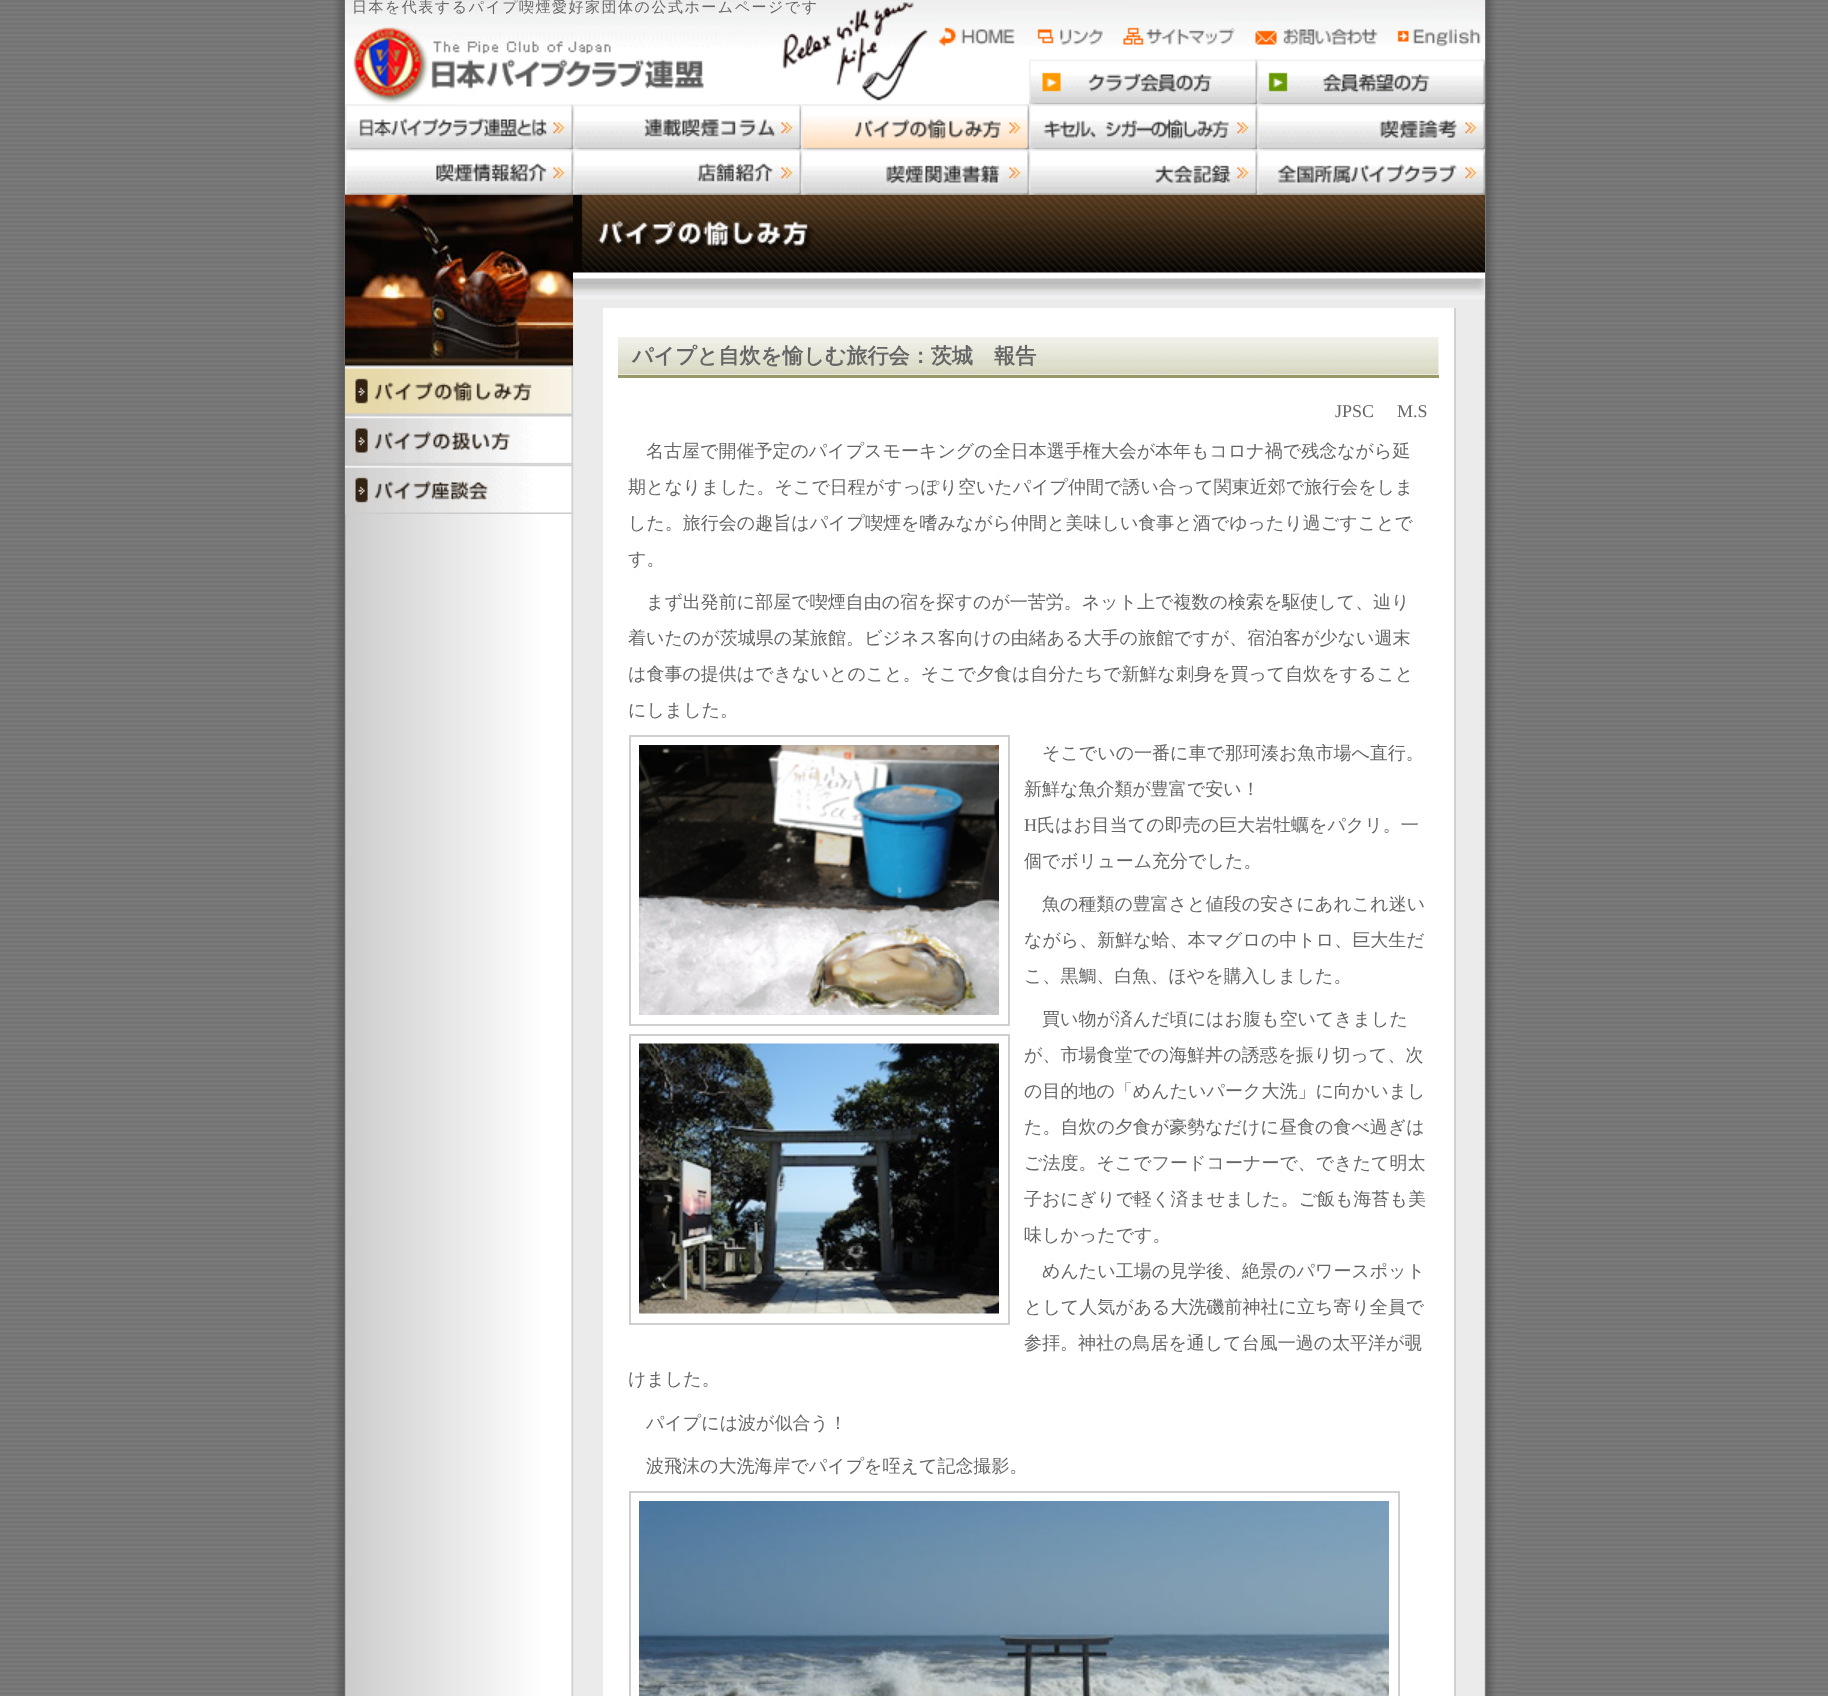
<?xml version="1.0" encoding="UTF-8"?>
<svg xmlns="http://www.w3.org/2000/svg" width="1828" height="1696">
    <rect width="100%" height="100%" fill="#FFFFFF"/>
    <image x="0" y="0" width="1828" height="1696" href="img_01.png"/>
    <image x="315" y="0" width="1202" height="1696" href="img_02.png"/>
    <image x="345" y="0" width="1140" height="105" href="img_03.png"/>
    <text x="352" y="12" font-family="WenQuanYi Zen Hei" font-size="15" font-weight="500" letter-spacing="1.5" fill="#666666">日本を代表するパイプ喫煙愛好家団体の公式ホームページです</text>
    <image x="345" y="25" width="375" height="80" href="img_04.png"/>
    <image x="939" y="27" width="542" height="20" href="img_05.png"/>
    <image x="1029" y="59" width="456" height="46" href="img_06.png"/>
    <image x="345" y="104" width="1140" height="46" href="img_07.png"/>
    <image x="801" y="104" width="228" height="46" href="img_08.png"/>
    <image x="345" y="365" width="227" height="50" href="img_11.png"/>
    <image x="345" y="194" width="228" height="172" href="img_10.png"/>
    <image x="573" y="194" width="912" height="106" href="img_14.png"/>
    <image x="345" y="149" width="1140" height="46" href="img_09.png"/>
    <image x="345" y="415" width="227" height="50" href="img_12.png"/>
    <image x="345" y="464" width="227" height="50" href="img_13.png"/>
    <rect x="603" y="308" width="851" height="1388" fill="#FFFFFF"/>
    <rect x="1454" y="308" width="2" height="1388" fill="#D1D1D1"/>
    <image x="618" y="337" width="821" height="38" href="img_15.png"/>
    <rect x="618" y="375" width="821" height="3" fill="#999966"/>
    <text x="632" y="363" font-family="WenQuanYi Zen Hei" font-size="21.1" font-weight="700" fill="#666666">パイプと自炊を愉しむ旅行会：茨城　報告</text>
    <text x="1335" y="417" font-family="Liberation Serif" font-size="18" fill="#666666">JPSC</text>
    <text x="1397" y="417" font-family="Liberation Serif" font-size="18" fill="#666666">M.S</text>
    <text x="646" y="457" font-family="WenQuanYi Zen Hei" font-size="18" font-weight="500" fill="#666666">名古屋で開催予定のパイプスモーキングの全日本選手権大会が本年もコロナ禍で残念ながら延</text>
    <text x="628" y="493" font-family="WenQuanYi Zen Hei" font-size="18" font-weight="500" fill="#666666">期となりました。そこで日程がすっぽり空いたパイプ仲間で誘い合って関東近郊で旅行会をしま</text>
    <text x="628" y="529" font-family="WenQuanYi Zen Hei" font-size="18" font-weight="500" fill="#666666">した。旅行会の趣旨はパイプ喫煙を嗜みながら仲間と美味しい食事と酒でゆったり過ごすことで</text>
    <text x="628" y="565" font-family="WenQuanYi Zen Hei" font-size="18" font-weight="500" fill="#666666">す。</text>
    <text x="646" y="608" font-family="WenQuanYi Zen Hei" font-size="18" font-weight="500" fill="#666666">まず出発前に部屋で喫煙自由の宿を探すのが一苦労。ネット上で複数の検索を駆使して、辿り</text>
    <text x="628" y="644" font-family="WenQuanYi Zen Hei" font-size="18" font-weight="500" fill="#666666">着いたのが茨城県の某旅館。ビジネス客向けの由緒ある大手の旅館ですが、宿泊客が少ない週末</text>
    <text x="628" y="680" font-family="WenQuanYi Zen Hei" font-size="18" font-weight="500" fill="#666666">は食事の提供はできないとのこと。そこで夕食は自分たちで新鮮な刺身を買って自炊をすること</text>
    <text x="628" y="716" font-family="WenQuanYi Zen Hei" font-size="18" font-weight="500" fill="#666666">にしました。</text>
    <rect x="630" y="736" width="379" height="289" fill="none" stroke="#CFCFCF" stroke-width="2"/>
    <image x="639" y="745" width="360" height="270" href="img_16.png"/>
    <text x="1042" y="759" font-family="WenQuanYi Zen Hei" font-size="18" font-weight="500" fill="#666666">そこでいの一番に車で那珂湊お魚市場へ直行。</text>
    <text x="1024" y="795" font-family="WenQuanYi Zen Hei" font-size="18" font-weight="500" fill="#666666">新鮮な魚介類が豊富で安い！</text>
    <text x="1024" y="831" font-family="Liberation Serif" font-size="18" fill="#666666">H</text>
    <text x="1037" y="831" font-family="WenQuanYi Zen Hei" font-size="18" font-weight="500" fill="#666666">氏はお目当ての即売の巨大岩牡蠣をパクリ。一</text>
    <text x="1024" y="867" font-family="WenQuanYi Zen Hei" font-size="18" font-weight="500" fill="#666666">個でボリューム充分でした。</text>
    <text x="1042" y="910" font-family="WenQuanYi Zen Hei" font-size="18" font-weight="500" fill="#666666">魚の種類の豊富さと値段の安さにあれこれ迷い</text>
    <text x="1024" y="946" font-family="WenQuanYi Zen Hei" font-size="18" font-weight="500" fill="#666666">ながら、新鮮な蛤、本マグロの中トロ、巨大生だ</text>
    <text x="1024" y="982" font-family="WenQuanYi Zen Hei" font-size="18" font-weight="500" fill="#666666">こ、黒鯛、白魚、ほやを購入しました。</text>
    <text x="1042" y="1025" font-family="WenQuanYi Zen Hei" font-size="18" font-weight="500" fill="#666666">買い物が済んだ頃にはお腹も空いてきました</text>
    <rect x="630" y="1035" width="379" height="289" fill="none" stroke="#CFCFCF" stroke-width="2"/>
    <image x="639" y="1043" width="360" height="271" href="img_17.png"/>
    <text x="1024" y="1061" font-family="WenQuanYi Zen Hei" font-size="18" font-weight="500" fill="#666666">が、市場食堂での海鮮丼の誘惑を振り切って、次</text>
    <text x="1024" y="1097" font-family="WenQuanYi Zen Hei" font-size="18" font-weight="500" fill="#666666">の目的地の「めんたいパーク大洗」に向かいまし</text>
    <text x="1024" y="1133" font-family="WenQuanYi Zen Hei" font-size="18" font-weight="500" fill="#666666">た。自炊の夕食が豪勢なだけに昼食の食べ過ぎは</text>
    <text x="1024" y="1169" font-family="WenQuanYi Zen Hei" font-size="18" font-weight="500" fill="#666666">ご法度。そこでフードコーナーで、できたて明太</text>
    <text x="1024" y="1205" font-family="WenQuanYi Zen Hei" font-size="18" font-weight="500" fill="#666666">子おにぎりで軽く済ませました。ご飯も海苔も美</text>
    <text x="1024" y="1241" font-family="WenQuanYi Zen Hei" font-size="18" font-weight="500" fill="#666666">味しかったです。</text>
    <text x="1042" y="1277" font-family="WenQuanYi Zen Hei" font-size="18" font-weight="500" fill="#666666">めんたい工場の見学後、絶景のパワースポット</text>
    <text x="1024" y="1313" font-family="WenQuanYi Zen Hei" font-size="18" font-weight="500" fill="#666666">として人気がある大洗磯前神社に立ち寄り全員で</text>
    <text x="1024" y="1349" font-family="WenQuanYi Zen Hei" font-size="18" font-weight="500" fill="#666666">参拝。神社の鳥居を通して台風一過の太平洋が覗</text>
    <text x="628" y="1385" font-family="WenQuanYi Zen Hei" font-size="18" font-weight="500" fill="#666666">けました。</text>
    <text x="646" y="1429" font-family="WenQuanYi Zen Hei" font-size="18" font-weight="500" fill="#666666">パイプには波が似合う！</text>
    <text x="646" y="1472" font-family="WenQuanYi Zen Hei" font-size="18" font-weight="500" fill="#666666">波飛沫の大洗海岸でパイプを咥えて記念撮影。</text>
    <rect x="630" y="1492" width="769" height="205" fill="none" stroke="#CFCFCF" stroke-width="2"/>
    <image x="639" y="1501" width="750" height="195" href="img_18.png"/>
</svg>
